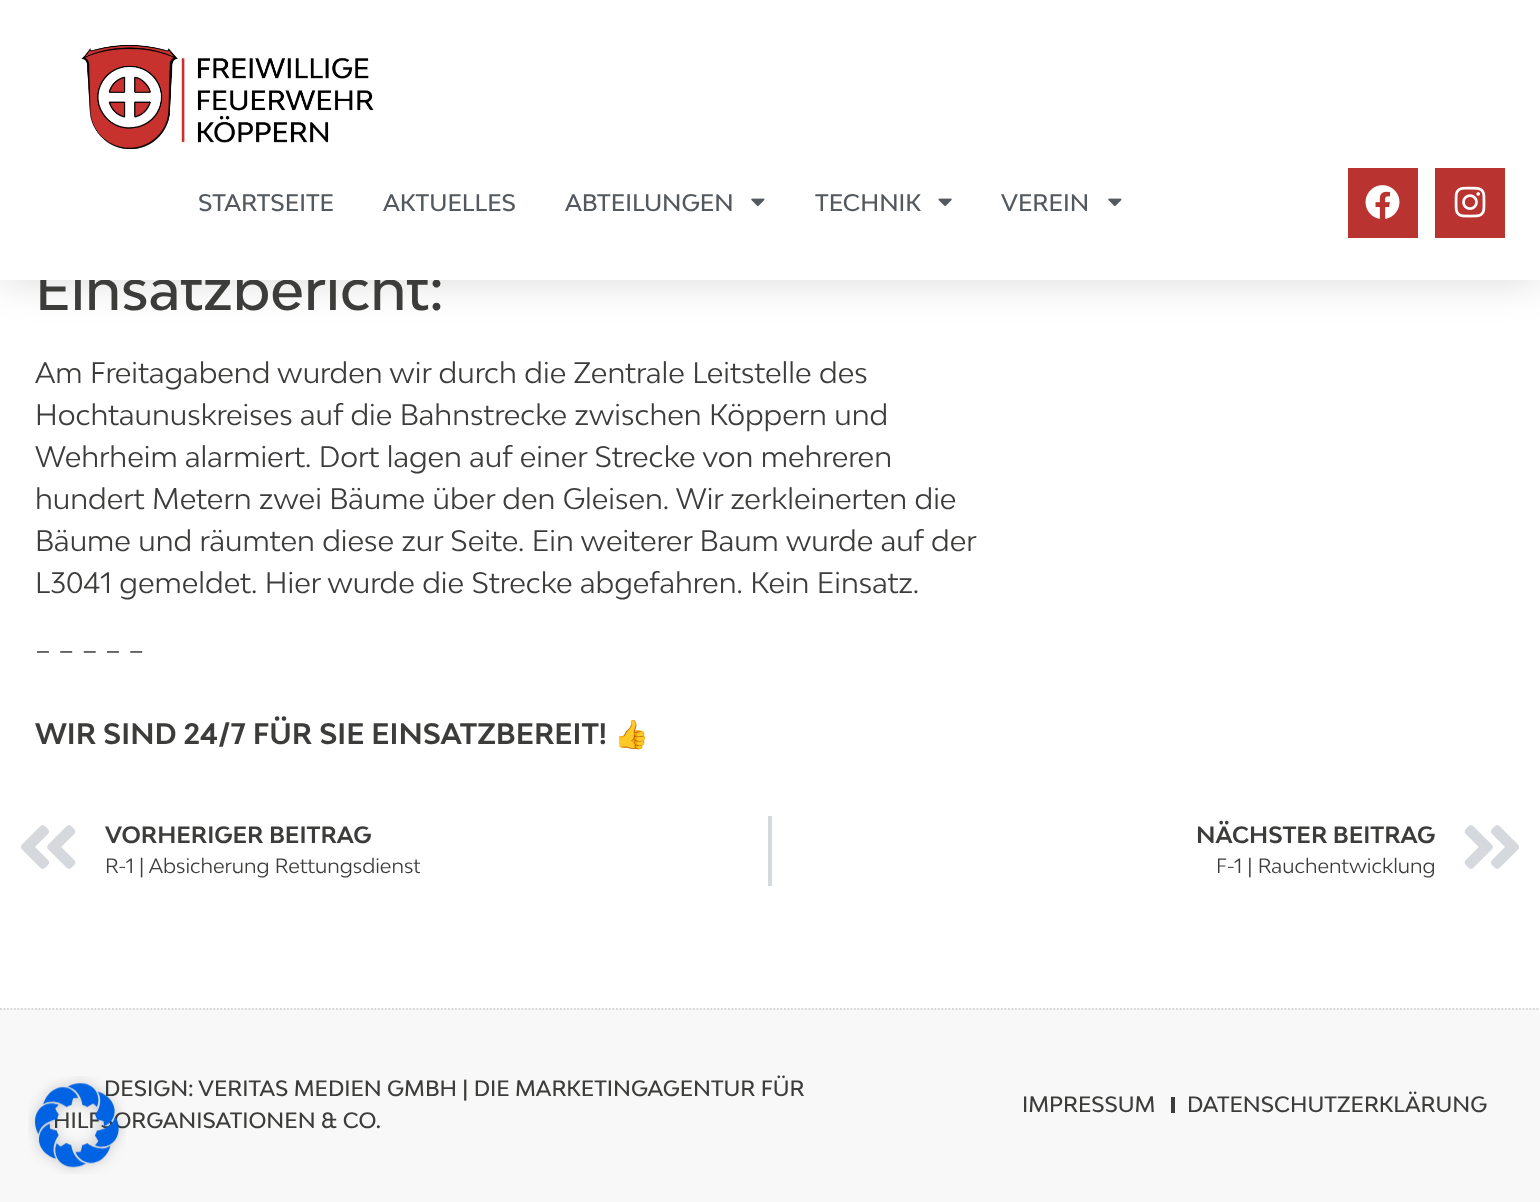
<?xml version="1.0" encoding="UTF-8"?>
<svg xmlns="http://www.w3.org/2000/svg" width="1540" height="1202">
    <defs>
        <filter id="blur1" x="-50%" y="-200%" width="200%" height="500%"><feGaussianBlur stdDeviation="21"/></filter>
        <clipPath id="clip1"><rect x="105" y="852" width="315" height="30"/></clipPath>
    </defs>
    <rect width="100%" height="100%" fill="#FFFFFF"/>
    <rect x="0" y="0" width="1540" height="280" fill="#000000" fill-opacity="0.15" filter="url(#blur1)"/>
    <text x="35" y="310" font-family="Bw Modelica" font-size="56" font-weight="500" fill="#3C3C3B">Einsatzbericht:</text>
    <rect x="0" y="0" width="1540" height="280" fill="#FFFFFF"/>
    <image x="81" y="44" width="293" height="106" href="img_01.png"/>
    <text x="198" y="211" font-family="Bw Modelica" font-size="22.75" font-weight="500" fill="#54595F">STARTSEITE</text>
    <text x="383" y="211" font-family="Bw Modelica" font-size="22.75" font-weight="500" fill="#54595F">AKTUELLES</text>
    <text x="565" y="211" font-family="Bw Modelica" font-size="22.75" font-weight="500" fill="#54595F">ABTEILUNGEN</text>
    <image x="751" y="198" width="14" height="9" href="img_02.png"/>
    <text x="815" y="211" font-family="Bw Modelica" font-size="22.75" font-weight="500" fill="#54595F">TECHNIK</text>
    <image x="938" y="198" width="14" height="9" href="img_03.png"/>
    <text x="1001" y="211" font-family="Bw Modelica" font-size="22.75" font-weight="500" fill="#54595F">VEREIN</text>
    <image x="1108" y="198" width="14" height="9" href="img_02.png"/>
    <rect x="1348" y="168" width="70" height="70" fill="#B93331"/>
    <image x="1365" y="185" width="35" height="34" href="img_04.png"/>
    <rect x="1435" y="168" width="70" height="70" fill="#B93331"/>
    <image x="1454" y="186" width="32" height="32" href="img_05.png"/>
    <text font-family="Bw Modelica" font-size="28" fill="#3C3C3B">
        <tspan x="35" y="383">Am Freitagabend wurden wir durch die Zentrale Leitstelle des</tspan>
        <tspan x="35" y="425">Hochtaunuskreises auf die Bahnstrecke zwischen Köppern und</tspan>
        <tspan x="35" y="467">Wehrheim alarmiert. Dort lagen auf einer Strecke von mehreren</tspan>
        <tspan x="35" y="509">hundert Metern zwei Bäume über den Gleisen. Wir zerkleinerten die</tspan>
        <tspan x="35" y="551">Bäume und räumten diese zur Seite. Ein weiterer Baum wurde auf der</tspan>
        <tspan x="35" y="593">L3041 gemeldet. Hier wurde die Strecke abgefahren. Kein Einsatz.</tspan>
    </text>
    <text x="35" y="660" font-family="Bw Modelica" font-size="28" fill="#3C3C3B">– – – – –</text>
    <text x="35" y="744" font-family="Bw Modelica" font-size="28" font-weight="700" fill="#3C3C3B">WIR SIND 24/7 FÜR SIE EINSATZBEREIT!</text>
    <text x="614" y="744" font-family="Noto Color Emoji" font-size="28" font-weight="700" fill="#3C3C3B">👍</text>
    <image x="21" y="825" width="55" height="44" href="img_06.png"/>
    <text x="105" y="843" font-family="Bw Modelica" font-size="22.4" font-weight="700" fill="#3C3C3B">VORHERIGER BEITRAG</text>
    <g clip-path="url(#clip1)">
        <text x="105" y="873" font-family="Bw Modelica" font-size="19.6" fill="#3C3C3B">R-1 | Absicherung Rettungsdienst</text>
    </g>
    <rect x="768" y="816" width="4" height="70" fill="#D5D8DC"/>
    <text x="1196" y="843" font-family="Bw Modelica" font-size="22.4" font-weight="700" fill="#3C3C3B">NÄCHSTER BEITRAG</text>
    <text x="1216" y="873" font-family="Bw Modelica" font-size="19.6" fill="#3C3C3B">F-1 | Rauchentwicklung</text>
    <image x="1464" y="825" width="55" height="44" href="img_07.png"/>
    <rect x="0" y="1008" width="1540" height="194" fill="#F8F8F8"/>
    <path d="M 0 1009 H 1540" fill="none" stroke="#D6D6D6" stroke-width="1.8" stroke-dasharray="1.75 1.75"/>
    <text x="104" y="1096" font-family="Bw Modelica" font-size="21" font-weight="500" fill="#3C3C3B">DESIGN: VERITAS MEDIEN GMBH | DIE MARKETINGAGENTUR FÜR</text>
    <text x="53" y="1128" font-family="Bw Modelica" font-size="21" font-weight="500" fill="#3C3C3B">HILFSORGANISATIONEN &amp; CO.</text>
    <text x="1022" y="1112" font-family="Bw Modelica" font-size="21" font-weight="500" fill="#3C3C3B">IMPRESSUM</text>
    <rect x="1171" y="1097" width="4" height="16" fill="#3C3C3B"/>
    <text x="1187" y="1112" font-family="Bw Modelica" font-size="21" font-weight="500" fill="#3C3C3B">DATENSCHUTZERKLÄRUNG</text>
    <image x="28" y="1076" width="98" height="98" href="img_08.png"/>
</svg>
